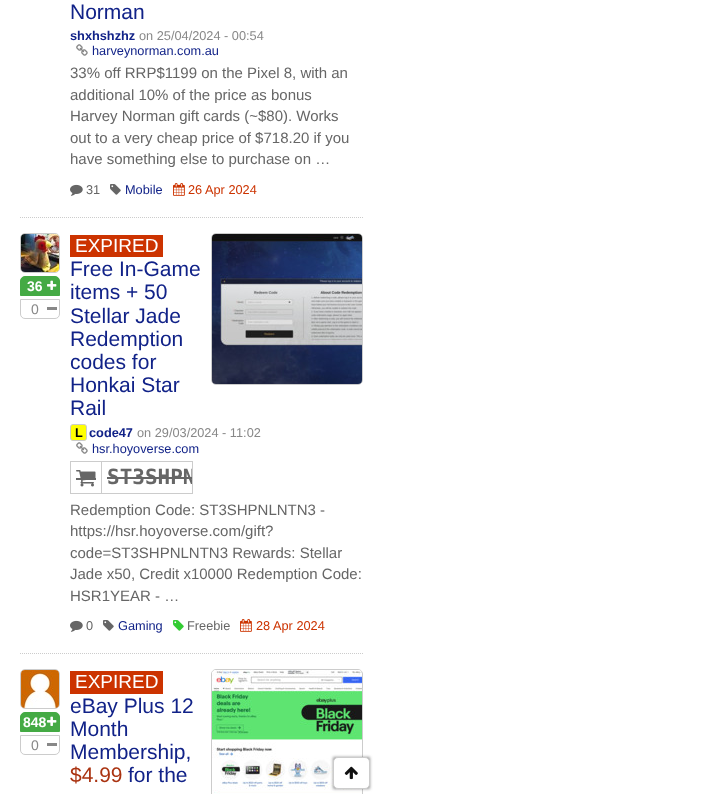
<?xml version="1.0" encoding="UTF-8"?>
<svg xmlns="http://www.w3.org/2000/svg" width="703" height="794">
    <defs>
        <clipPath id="clip1"><rect x="71" y="462" width="121" height="31"/></clipPath>
        <filter id="blur1" x="-50%" y="-200%" width="200%" height="500%"><feGaussianBlur stdDeviation="1.5"/></filter>
    </defs>
    <rect width="100%" height="100%" fill="#FFFFFF"/>
    <path d="M 20 217.5 H 363" fill="none" stroke="#CCCCCC" stroke-dasharray="1 1"/>
    <text x="70" y="19" font-family="Liberation Sans" font-size="21" fill="#112288">Norman</text>
    <text x="70" y="40" font-family="Liberation Sans" font-size="12.75" font-weight="700" fill="#112288">shxhshzhz</text>
    <text x="139" y="40" font-family="Liberation Sans" font-size="12.75" fill="#888888">on 25/04/2024 - 00:54</text>
    <image x="76" y="44" width="12" height="12" href="img_01.png"/>
    <text x="92" y="55" font-family="Liberation Sans" font-size="12.75" fill="#112288">harveynorman.com.au</text>
    <text font-family="Liberation Sans" font-size="15" fill="#666666">
        <tspan x="70" y="78">33% off RRP$1199 on the Pixel 8, with an</tspan>
        <tspan x="70" y="100">additional 10% of the price as bonus</tspan>
        <tspan x="70" y="121">Harvey Norman gift cards (~$80). Works</tspan>
        <tspan x="70" y="143">out to a very cheap price of $718.20 if you</tspan>
        <tspan x="70" y="164">have something else to purchase on …</tspan>
    </text>
    <image x="70" y="184" width="13" height="12" href="img_02.png"/>
    <text x="86" y="194" font-family="Liberation Sans" font-size="12.75" fill="#666666">31</text>
    <image x="110" y="184" width="11" height="11" href="img_03.png"/>
    <text x="125" y="194" font-family="Liberation Sans" font-size="12.75" fill="#112288">Mobile</text>
    <image x="173" y="183" width="12" height="13" href="img_04.png"/>
    <text x="188" y="194" font-family="Liberation Sans" font-size="12.75" fill="#CC3300">26 Apr 2024</text>
    <path d="M 20 653.5 H 363" fill="none" stroke="#CCCCCC" stroke-dasharray="1 1"/>
    <rect x="20.5" y="233.5" width="39" height="39" rx="4.5" fill="none" stroke="#CCCCCC"/>
    <image x="21" y="234" width="38" height="38" href="img_05.png"/>
    <path d="M 25 276.5 H 55 C 57.5 276.5 59.5 278.5 59.5 281 V 295.5 H 20.5 V 281 C 20.5 278.5 22.5 276.5 25 276.5 Z" fill="#44AA44" stroke="#44AA44"/>
    <text x="27" y="291" font-family="Liberation Sans" font-size="14" font-weight="700" fill="#FFFFFF">36</text>
    <image x="47" y="280" width="10" height="10" href="img_06.png"/>
    <path d="M 20.5 299.5 H 59.5 V 314 C 59.5 316.5 57.5 318.5 55 318.5 H 25 C 22.5 318.5 20.5 316.5 20.5 314 Z" fill="none" stroke="#CCCCCC"/>
    <text x="31" y="314" font-family="Liberation Sans" font-size="14" fill="#888888">0</text>
    <rect x="47" y="307" width="10" height="3" fill="#888888"/>
    <rect x="70" y="235" width="93" height="22" fill="#CC3300"/>
    <text x="75" y="252" font-family="Liberation Sans" font-size="19" fill="#FFFFFF">EXPIRED</text>
    <text font-family="Liberation Sans" font-size="21" fill="#112288">
        <tspan x="70" y="276">Free In-Game</tspan>
        <tspan x="70" y="299">items + 50</tspan>
        <tspan x="70" y="323">Stellar Jade</tspan>
        <tspan x="70" y="346">Redemption</tspan>
        <tspan x="70" y="369">codes for</tspan>
        <tspan x="70" y="392">Honkai Star</tspan>
        <tspan x="70" y="415">Rail</tspan>
    </text>
    <rect x="211.5" y="233.5" width="151" height="151" rx="4.5" fill="none" stroke="#CCCCCC"/>
    <image x="212" y="234" width="150" height="150" href="img_07.png"/>
    <rect x="70.5" y="424.5" width="16" height="16" rx="2.5" fill="#FFFF00" stroke="#CCCCCC"/>
    <text x="75" y="437" font-family="Liberation Sans" font-size="12.75" font-weight="700" fill="#000000">L</text>
    <text x="89" y="437" font-family="Liberation Sans" font-size="12.75" font-weight="700" fill="#112288">code47</text>
    <text x="137" y="437" font-family="Liberation Sans" font-size="12.75" fill="#888888">on 29/03/2024 - 11:02</text>
    <image x="76" y="442" width="12" height="12" href="img_01.png"/>
    <text x="92" y="453" font-family="Liberation Sans" font-size="12.75" fill="#112288">hsr.hoyoverse.com</text>
    <rect x="70.5" y="461.5" width="122" height="32" fill="none" stroke="#CCCCCC"/>
    <image x="76" y="470" width="20" height="17" href="img_08.png"/>
    <rect x="76" y="478" width="20" height="2" fill="#666666"/>
    <rect x="101" y="462" width="1" height="31" fill="#CCCCCC"/>
    <g clip-path="url(#clip1)">
        <text x="107" y="484" font-family="DejaVu Sans Mono" font-size="21" font-weight="700" fill="#666666">ST3SHPN</text>
    </g>
    <rect x="107" y="477" width="85" height="2" fill="#666666"/>
    <text font-family="Liberation Sans" font-size="15" fill="#666666">
        <tspan x="70" y="515">Redemption Code: ST3SHPNLNTN3 -</tspan>
        <tspan x="70" y="536">https://hsr.hoyoverse.com/gift?</tspan>
        <tspan x="70" y="558">code=ST3SHPNLNTN3 Rewards: Stellar</tspan>
        <tspan x="70" y="579">Jade x50, Credit x10000 Redemption Code:</tspan>
        <tspan x="70" y="601">HSR1YEAR - …</tspan>
    </text>
    <image x="70" y="620" width="13" height="12" href="img_02.png"/>
    <text x="86" y="630" font-family="Liberation Sans" font-size="12.75" fill="#666666">0</text>
    <image x="103" y="620" width="11" height="11" href="img_03.png"/>
    <text x="118" y="630" font-family="Liberation Sans" font-size="12.75" fill="#112288">Gaming</text>
    <image x="173" y="620" width="11" height="11" href="img_09.png"/>
    <text x="187" y="630" font-family="Liberation Sans" font-size="12.75" fill="#666666">Freebie</text>
    <image x="240" y="619" width="12" height="13" href="img_04.png"/>
    <text x="256" y="630" font-family="Liberation Sans" font-size="12.75" fill="#CC3300">28 Apr 2024</text>
    <rect x="20.5" y="669.5" width="39" height="39" rx="4.5" fill="none" stroke="#CCCCCC"/>
    <image x="21" y="670" width="38" height="38" href="img_10.png"/>
    <path d="M 25 712.5 H 55 C 57.5 712.5 59.5 714.5 59.5 717 V 731.5 H 20.5 V 717 C 20.5 714.5 22.5 712.5 25 712.5 Z" fill="#44AA44" stroke="#44AA44"/>
    <text x="23" y="727" font-family="Liberation Sans" font-size="14" font-weight="700" fill="#FFFFFF">848</text>
    <image x="47" y="716" width="10" height="10" href="img_06.png"/>
    <path d="M 20.5 735.5 H 59.5 V 750 C 59.5 752.5 57.5 754.5 55 754.5 H 25 C 22.5 754.5 20.5 752.5 20.5 750 Z" fill="none" stroke="#CCCCCC"/>
    <text x="31" y="750" font-family="Liberation Sans" font-size="14" fill="#888888">0</text>
    <rect x="47" y="743" width="10" height="3" fill="#888888"/>
    <rect x="70" y="671" width="93" height="23" fill="#CC3300"/>
    <text x="75" y="688" font-family="Liberation Sans" font-size="19" fill="#FFFFFF">EXPIRED</text>
    <text font-family="Liberation Sans" font-size="21" fill="#112288">
        <tspan x="70" y="713">eBay Plus 12</tspan>
        <tspan x="70" y="736">Month</tspan>
        <tspan x="70" y="759">Membership,</tspan>
    </text>
    <text x="70" y="782" font-family="Liberation Sans" font-size="21" fill="#AA3311">$4.99</text>
    <text x="128" y="782" font-family="Liberation Sans" font-size="21" fill="#112288">for the</text>
    <rect x="211.5" y="669.5" width="151" height="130" rx="4.5" fill="none" stroke="#CCCCCC"/>
    <image x="212" y="670" width="150" height="124" href="img_11.png"/>
    <rect x="333" y="757" width="37" height="32" fill="#000000" fill-opacity="0.4" filter="url(#blur1)"/>
    <rect x="333.5" y="757.5" width="36" height="31" rx="4.5" fill="#FFFFFF" stroke="#CCCCCC"/>
    <image x="344" y="766" width="14" height="14" href="img_12.png"/>
</svg>
